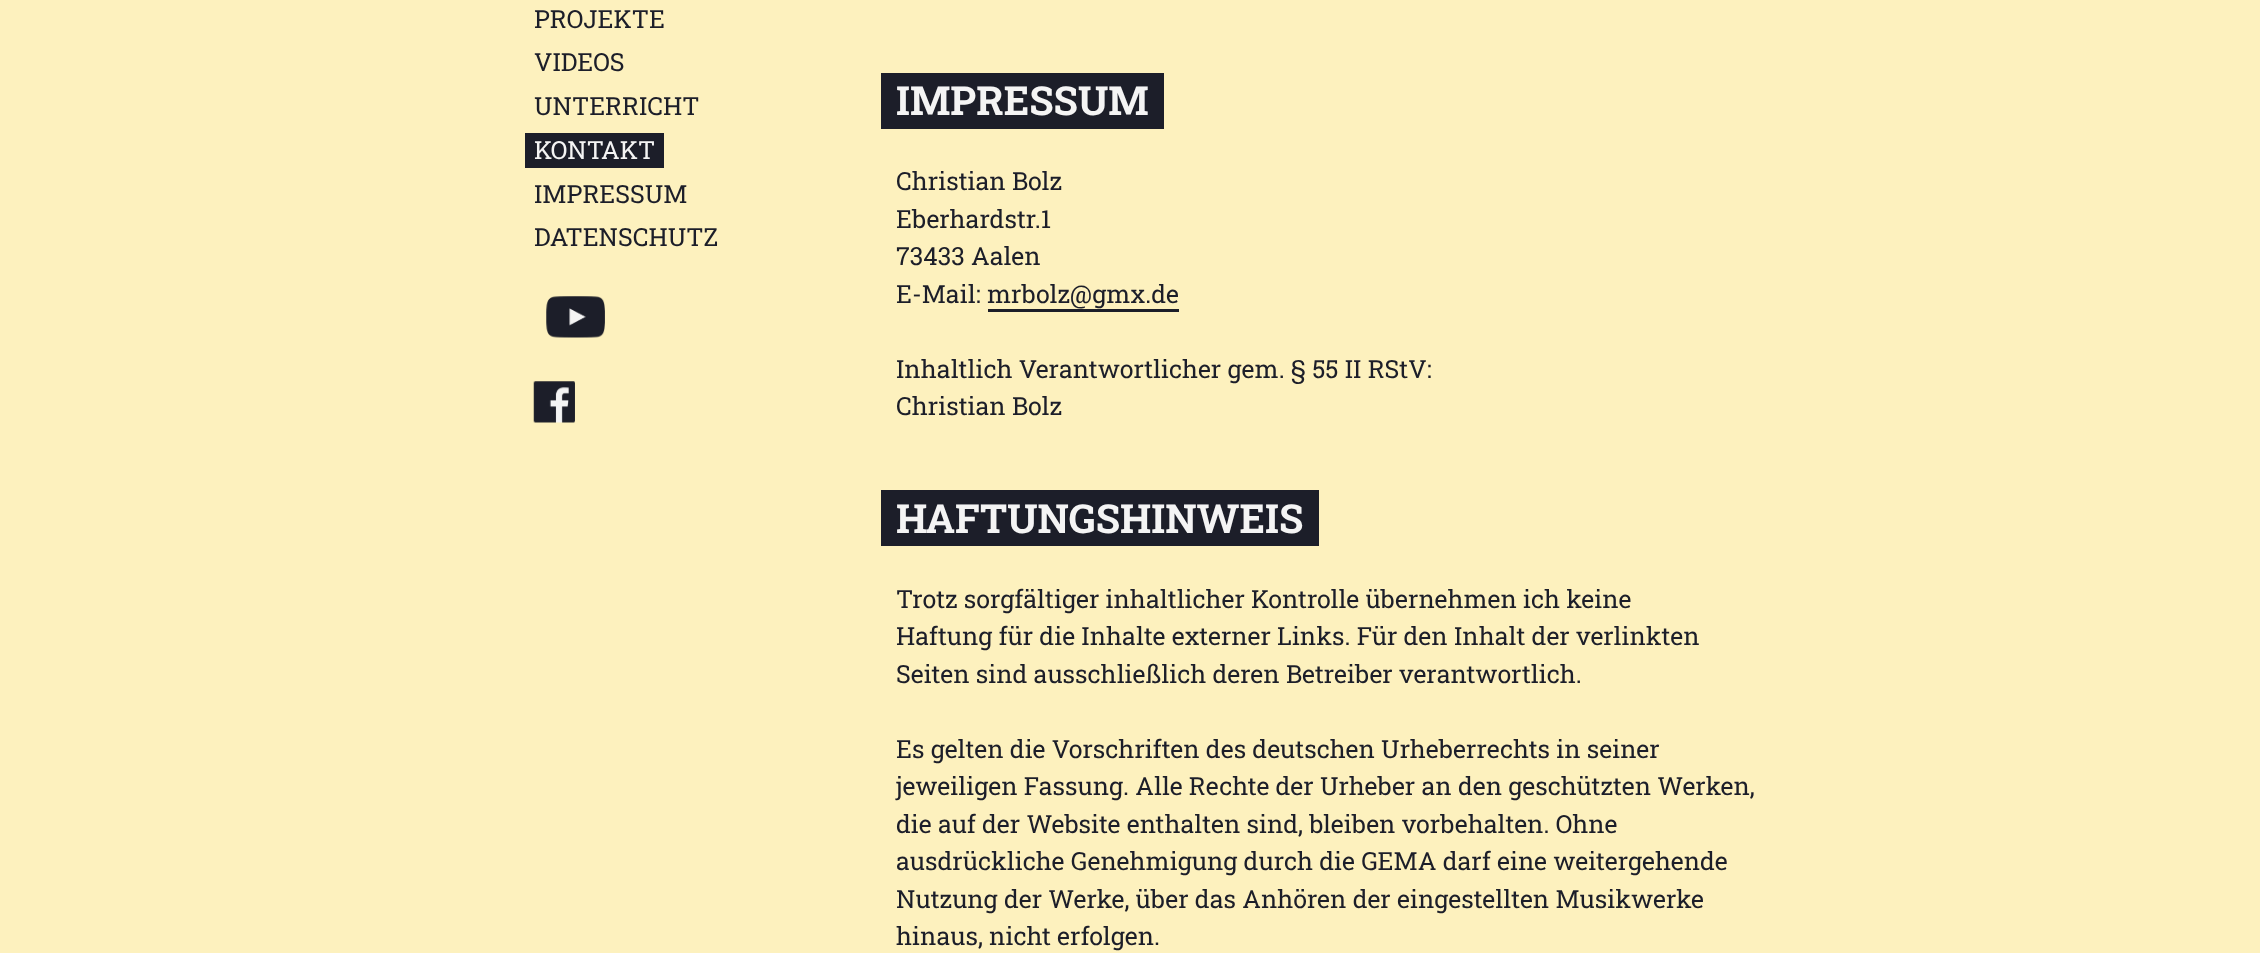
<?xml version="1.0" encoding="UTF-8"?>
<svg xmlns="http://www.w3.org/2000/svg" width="2260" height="953">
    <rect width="100%" height="100%" fill="#FDF1BE"/>
    <text font-family="Roboto Slab" font-size="25" fill="#1C1E29">
        <tspan x="534" y="28">PROJEKTE</tspan>
        <tspan x="534" y="71">VIDEOS</tspan>
        <tspan x="534" y="115">UNTERRICHT</tspan>
    </text>
    <rect x="525" y="133" width="139" height="35" fill="#1C1E29"/>
    <text x="534" y="159" font-family="Roboto Slab" font-size="25" fill="#F4F4F4">KONTAKT</text>
    <text font-family="Roboto Slab" font-size="25" fill="#1C1E29">
        <tspan x="534" y="203">IMPRESSUM</tspan>
        <tspan x="534" y="246">DATENSCHUTZ</tspan>
    </text>
    <image x="546" y="296" width="59" height="42" href="img_01.png"/>
    <image x="533" y="381" width="42" height="42" href="img_02.png"/>
    <rect x="881" y="73" width="283" height="56" fill="#1C1E29"/>
    <text x="896" y="115" font-family="Roboto Slab" font-size="40" font-weight="700" fill="#F4F4F4">IMPRESSUM</text>
    <text font-family="Roboto Slab" font-size="25" fill="#1C1E29">
        <tspan x="896" y="190">Christian Bolz</tspan>
        <tspan x="896" y="228">Eberhardstr.1</tspan>
        <tspan x="896" y="265">73433 Aalen</tspan>
        <tspan x="896" y="303">E-Mail: mrbolz@gmx.de</tspan>
    </text>
    <rect x="988" y="309" width="191" height="3" fill="#1C1E29"/>
    <text font-family="Roboto Slab" font-size="25" fill="#1C1E29">
        <tspan x="896" y="378">Inhaltlich Verantwortlicher gem. § 55 II RStV:</tspan>
        <tspan x="896" y="415">Christian Bolz</tspan>
    </text>
    <rect x="881" y="490" width="438" height="56" fill="#1C1E29"/>
    <text x="896" y="533" font-family="Roboto Slab" font-size="40" font-weight="700" fill="#F4F4F4">HAFTUNGSHINWEIS</text>
    <text font-family="Roboto Slab" font-size="25" fill="#1C1E29">
        <tspan x="896" y="608">Trotz sorgfältiger inhaltlicher Kontrolle übernehmen ich keine</tspan>
        <tspan x="896" y="645">Haftung für die Inhalte externer Links. Für den Inhalt der verlinkten</tspan>
        <tspan x="896" y="683">Seiten sind ausschließlich deren Betreiber verantwortlich.</tspan>
    </text>
    <text font-family="Roboto Slab" font-size="25" fill="#1C1E29">
        <tspan x="896" y="758">Es gelten die Vorschriften des deutschen Urheberrechts in seiner</tspan>
        <tspan x="896" y="795">jeweiligen Fassung. Alle Rechte der Urheber an den geschützten Werken,</tspan>
        <tspan x="896" y="833">die auf der Website enthalten sind, bleiben vorbehalten. Ohne</tspan>
        <tspan x="896" y="870">ausdrückliche Genehmigung durch die GEMA darf eine weitergehende</tspan>
        <tspan x="896" y="908">Nutzung der Werke, über das Anhören der eingestellten Musikwerke</tspan>
        <tspan x="896" y="945">hinaus, nicht erfolgen.</tspan>
    </text>
</svg>
